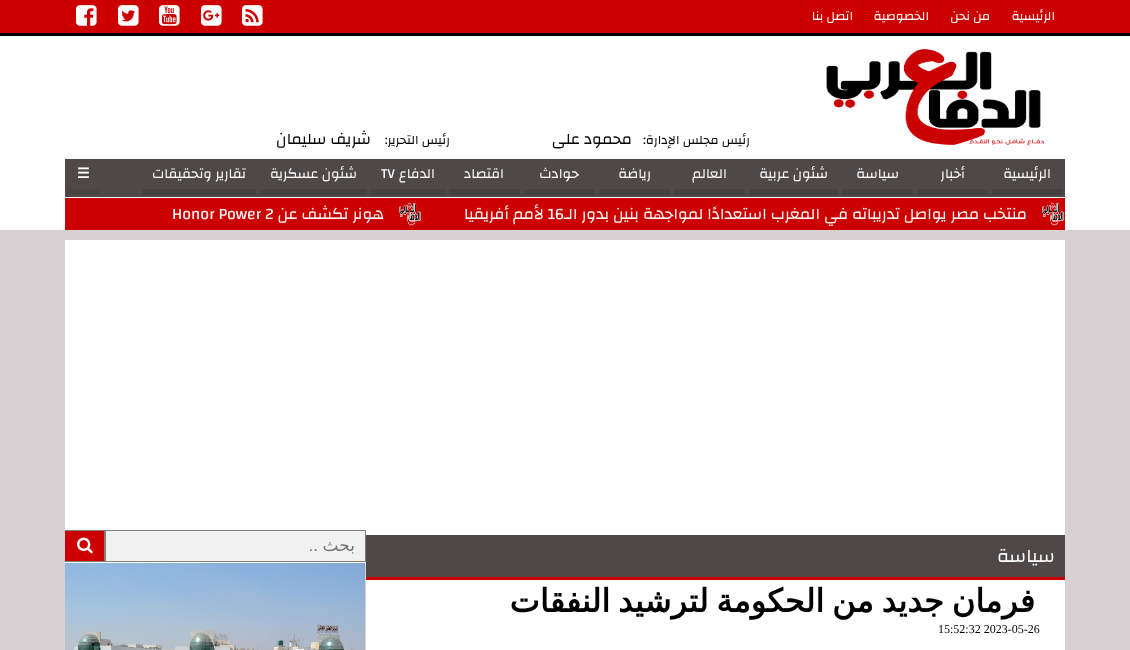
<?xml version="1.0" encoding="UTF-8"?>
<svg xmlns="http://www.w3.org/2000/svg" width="1130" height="650">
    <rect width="100%" height="100%" fill="#D7D1D3"/>
    <rect x="0" y="36" width="1130" height="194" fill="#FFFFFF"/>
    <rect x="0" y="0" width="1130" height="33" fill="#CC0000"/>
    <rect x="0" y="33" width="1130" height="3" fill="#000000"/>
    <path d="M 1000.5 0 V 33" fill="none" stroke="#BB0000" stroke-dasharray="3 2"/>
    <text x="1055" y="20" font-family="Changa" font-size="12.75" direction="rtl" fill="#FFFFFF">الرئيسية</text>
    <path d="M 939.5 0 V 33" fill="none" stroke="#BB0000" stroke-dasharray="3 2"/>
    <text x="990" y="20" font-family="Changa" font-size="12.75" direction="rtl" fill="#FFFFFF">من نحن</text>
    <path d="M 863.5 0 V 33" fill="none" stroke="#BB0000" stroke-dasharray="3 2"/>
    <text x="929" y="20" font-family="Changa" font-size="12.75" direction="rtl" fill="#FFFFFF">الخصوصية</text>
    <path d="M 800.5 0 V 33" fill="none" stroke="#BB0000" stroke-dasharray="3 2"/>
    <text x="853" y="20" font-family="Changa" font-size="12.75" direction="rtl" fill="#FFFFFF">اتصل بنا</text>
    <path d="M 231.5 0 V 32" fill="none" stroke="#BB0000" stroke-dasharray="3 1.83"/>
    <image x="242" y="5" width="21" height="21" href="img_01.png"/>
    <path d="M 190.5 0 V 32" fill="none" stroke="#BB0000" stroke-dasharray="3 1.83"/>
    <image x="201" y="5" width="21" height="21" href="img_02.png"/>
    <path d="M 148.5 0 V 32" fill="none" stroke="#BB0000" stroke-dasharray="3 1.83"/>
    <image x="159" y="5" width="21" height="21" href="img_03.png"/>
    <path d="M 107.5 0 V 32" fill="none" stroke="#BB0000" stroke-dasharray="3 1.83"/>
    <image x="118" y="5" width="21" height="21" href="img_04.png"/>
    <path d="M 65.5 0 V 32" fill="none" stroke="#BB0000" stroke-dasharray="3 1.83"/>
    <image x="76" y="5" width="21" height="21" href="img_05.png"/>
    <image x="826" y="49" width="218" height="97" href="img_06.png"/>
    <text x="750" y="144" font-family="Changa" font-size="12.75" direction="rtl" fill="#000000">رئيس مجلس الإدارة:</text>
    <text x="632" y="144" font-family="Changa" font-size="16" direction="rtl" fill="#000000">محمود على</text>
    <text x="450" y="144" font-family="Changa" font-size="12.75" direction="rtl" fill="#000000">رئيس التحرير:</text>
    <text x="371" y="144" font-family="Changa" font-size="16" direction="rtl" fill="#000000">شريف سليمان</text>
    <rect x="65" y="159" width="1000" height="38" fill="#4E4848"/>
    <rect x="65" y="155" width="1000" height="4" fill="#F9F9F9"/>
    <rect x="65" y="197" width="1000" height="1" fill="#F9F9F9"/>
    <rect x="992" y="189" width="71" height="6" fill="#464141"/>
    <text x="1051" y="178" font-family="Changa" font-size="14" direction="rtl" fill="#FFFFFF">الرئيسية</text>
    <rect x="917" y="189" width="71" height="6" fill="#464141"/>
    <text x="965" y="178" font-family="Changa" font-size="14" direction="rtl" fill="#FFFFFF">أخبار</text>
    <rect x="842" y="189" width="71" height="6" fill="#464141"/>
    <text x="899" y="178" font-family="Changa" font-size="14" direction="rtl" fill="#FFFFFF">سياسة</text>
    <rect x="749" y="189" width="89" height="6" fill="#464141"/>
    <text x="828" y="178" font-family="Changa" font-size="14" direction="rtl" fill="#FFFFFF">شئون عربية</text>
    <rect x="674" y="189" width="71" height="6" fill="#464141"/>
    <text x="727" y="178" font-family="Changa" font-size="14" direction="rtl" fill="#FFFFFF">العالم</text>
    <rect x="599" y="189" width="71" height="6" fill="#464141"/>
    <text x="651" y="178" font-family="Changa" font-size="14" direction="rtl" fill="#FFFFFF">رياضة</text>
    <rect x="524" y="189" width="71" height="6" fill="#464141"/>
    <text x="579" y="178" font-family="Changa" font-size="14" direction="rtl" fill="#FFFFFF">حوادث</text>
    <rect x="449" y="189" width="71" height="6" fill="#464141"/>
    <text x="504" y="178" font-family="Changa" font-size="14" direction="rtl" fill="#FFFFFF">اقتصاد</text>
    <rect x="371" y="189" width="74" height="6" fill="#464141"/>
    <text x="435" y="178" font-family="Changa" font-size="14" direction="rtl" fill="#FFFFFF">الدفاع</text>
    <text x="381" y="178" font-family="Changa" font-size="14" fill="#FFFFFF">TV</text>
    <rect x="260" y="189" width="107" height="6" fill="#464141"/>
    <text x="357" y="178" font-family="Changa" font-size="14" direction="rtl" fill="#FFFFFF">شئون عسكرية</text>
    <rect x="142" y="189" width="114" height="6" fill="#464141"/>
    <text x="246" y="178" font-family="Changa" font-size="14" direction="rtl" fill="#FFFFFF">تقارير وتحقيقات</text>
    <rect x="67" y="189" width="33" height="5" fill="#484343"/>
    <text x="77" y="178" font-family="DejaVu Sans" font-size="14" font-weight="700" fill="#FFFFFF">☰</text>
    <rect x="65" y="198" width="1000" height="32" fill="#CC0000"/>
    <image x="1042" y="202" width="22" height="24" href="img_07.png"/>
    <text x="1027" y="219" font-family="Changa" font-size="16" direction="rtl" fill="#FFFFFF">منتخب مصر يواصل تدريباته في المغرب استعدادًا لمواجهة بنين بدور الـ</text>
    <text x="548" y="219" font-family="Changa" font-size="16" fill="#FFFFFF">16</text>
    <text x="544" y="219" font-family="Changa" font-size="16" direction="rtl" fill="#FFFFFF">لأمم أفريقيا</text>
    <image x="399" y="202" width="22" height="24" href="img_07.png"/>
    <text x="384" y="219" font-family="Changa" font-size="16" direction="rtl" fill="#FFFFFF">هونر تكشف عن</text>
    <text x="172" y="219" font-family="Changa" font-size="16" fill="#FFFFFF">Honor Power 2</text>
    <rect x="65" y="240" width="1000" height="323" fill="#FFFFFF"/>
    <rect x="366" y="563" width="699" height="87" fill="#FFFFFF"/>
    <rect x="366" y="535" width="699" height="42" fill="#4E4848"/>
    <rect x="366" y="577" width="699" height="3" fill="#CC0000"/>
    <text x="1055" y="562" font-family="Changa" font-size="19" direction="rtl" fill="#FFFFFF">سياسة</text>
    <text x="1035" y="612" word-spacing="-2.25" font-family="DejaVu Sans" font-size="32" font-weight="700" direction="rtl" fill="#000000">فرمان جديد من الحكومة لترشيد النفقات</text>
    <text x="938" y="633" font-family="Liberation Serif" font-size="12" fill="#000000">15:52:32 2023-05-26</text>
    <rect x="105.5" y="530.5" width="260" height="31" fill="#F1F1F1" stroke="#808080"/>
    <text x="355" y="551" font-family="DejaVu Sans" font-size="17" direction="rtl" fill="#757575">بحث</text>
    <text x="318" y="551" font-family="Liberation Sans" font-size="17" direction="rtl" fill="#757575">..</text>
    <rect x="65" y="531" width="39" height="30" fill="#CC0000"/>
    <rect x="65" y="530" width="40" height="1" fill="#808080"/>
    <rect x="104" y="530" width="1" height="32" fill="#808080"/>
    <rect x="65" y="561" width="40" height="1" fill="#808080"/>
    <image x="77" y="537" width="16" height="17" href="img_08.png"/>
    <image x="65" y="563" width="300" height="87" href="img_09.png"/>
</svg>
